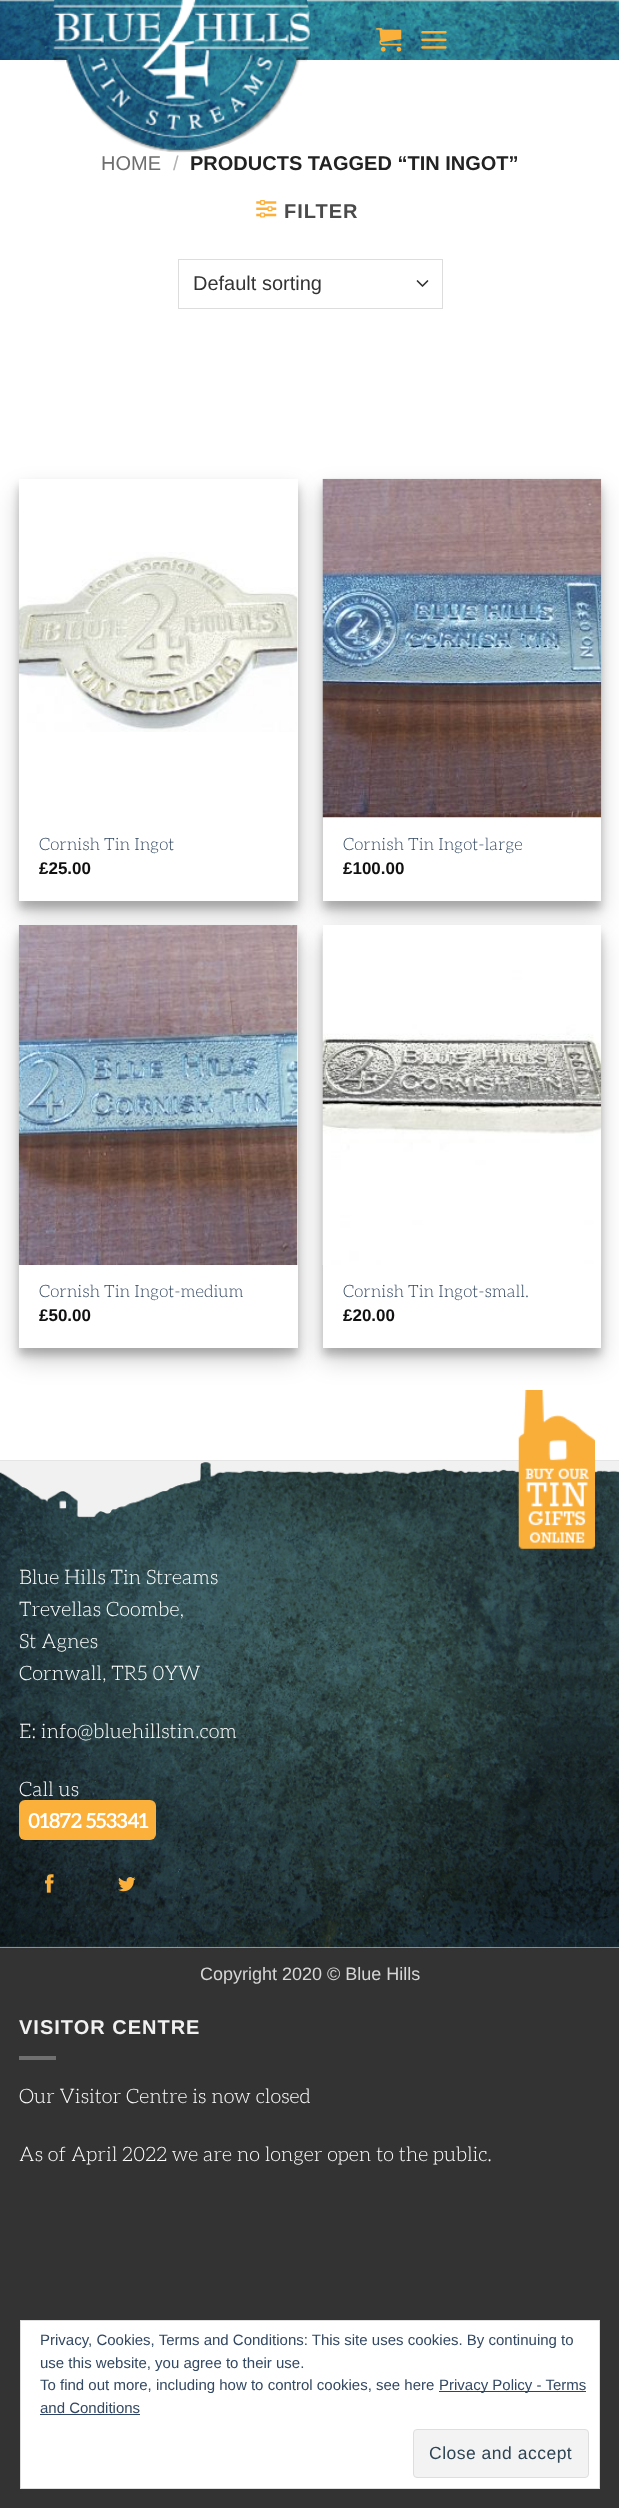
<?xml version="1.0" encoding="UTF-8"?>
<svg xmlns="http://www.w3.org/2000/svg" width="619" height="2508">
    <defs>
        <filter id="blur1" x="-50%" y="-200%" width="200%" height="500%"><feGaussianBlur stdDeviation="4"/></filter>
        <filter id="blur2" x="-50%" y="-200%" width="200%" height="500%"><feGaussianBlur stdDeviation="12.5"/></filter>
        <clipPath id="clip1"><path d="M 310 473 H 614 V 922 H 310 Z M 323 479 H 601 V 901 H 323 Z" clip-rule="evenodd"/></clipPath>
        <clipPath id="clip2"><path d="M 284 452 H 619 V 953 H 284 Z M 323 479 H 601 V 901 H 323 Z" clip-rule="evenodd"/></clipPath>
    </defs>
    <rect width="100%" height="100%" fill="#333333"/>
    <rect x="0" y="0" width="619" height="1460" fill="#FFFFFF"/>
    <image x="0" y="0" width="619" height="60" href="img_01.png"/>
    <image x="376" y="28" width="26" height="24" href="img_02.png"/>
    <image x="421" y="31" width="26" height="18" href="img_03.png"/>
    <image x="50" y="0" width="261" height="153" href="img_04.png"/>
    <text x="101" y="170" font-family="Liberation Sans" font-size="20" fill="#6E6E6E">HOME</text>
    <text x="173" y="170" font-family="Liberation Sans" font-size="20" fill="#B2B2B2">/</text>
    <text x="190" y="170" font-family="Liberation Sans" font-size="20" font-weight="700" fill="#222222">PRODUCTS TAGGED “TIN INGOT”</text>
    <image x="256" y="200" width="21" height="18" href="img_05.png"/>
    <text x="284" y="218" font-family="Liberation Sans" font-size="20" font-weight="700" letter-spacing="1" fill="#4A4A4A">FILTER</text>
    <path d="M 417.5 281 L 422.5 286 L 427.5 281" fill="none" stroke="#333333" stroke-width="1.7" stroke-linecap="round" stroke-linejoin="round"/>
    <rect x="178.5" y="259.5" width="264" height="49" fill="none" stroke="#DDDDDD"/>
    <text x="193" y="290" font-family="Liberation Sans" font-size="20" fill="#333333">Default sorting</text>
    <rect x="19" y="486" width="279" height="423" fill="#000000" fill-opacity="0.22" filter="url(#blur1)"/>
    <rect x="19" y="491" width="279" height="423" fill="#000000" fill-opacity="0.19" filter="url(#blur2)"/>
    <rect x="19" y="479" width="279" height="422" fill="#FFFFFF"/>
    <image x="18" y="552" width="280" height="180" href="img_06.png"/>
    <text x="39" y="850" font-family="aleo" font-size="17" font-weight="300" fill="#334862">Cornish Tin Ingot</text>
    <text x="39" y="874" font-family="Liberation Sans" font-size="17" font-weight="700" fill="#111111">£25.00</text>
    <g clip-path="url(#clip1)">
        <rect x="323" y="486" width="278" height="423" fill="#000000" fill-opacity="0.22" filter="url(#blur1)"/>
    </g>
    <g clip-path="url(#clip2)">
        <rect x="323" y="491" width="278" height="423" fill="#000000" fill-opacity="0.19" filter="url(#blur2)"/>
    </g>
    <image x="322" y="478" width="280" height="340" href="img_07.png"/>
    <text x="343" y="850" font-family="aleo" font-size="17" font-weight="300" fill="#334862">Cornish Tin Ingot-large</text>
    <text x="343" y="874" font-family="Liberation Sans" font-size="17" font-weight="700" fill="#111111">£100.00</text>
    <rect x="19" y="933" width="279" height="422" fill="#000000" fill-opacity="0.22" filter="url(#blur1)"/>
    <rect x="19" y="938" width="279" height="422" fill="#000000" fill-opacity="0.19" filter="url(#blur2)"/>
    <rect x="19" y="925" width="279" height="423" fill="#FFFFFF"/>
    <image x="18" y="925" width="280" height="340" href="img_08.png"/>
    <text x="39" y="1297" font-family="aleo" font-size="17" font-weight="300" fill="#334862">Cornish Tin Ingot-medium</text>
    <text x="39" y="1321" font-family="Liberation Sans" font-size="17" font-weight="700" fill="#111111">£50.00</text>
    <rect x="323" y="933" width="278" height="422" fill="#000000" fill-opacity="0.22" filter="url(#blur1)"/>
    <rect x="323" y="938" width="278" height="422" fill="#000000" fill-opacity="0.19" filter="url(#blur2)"/>
    <rect x="323" y="925" width="278" height="423" fill="#FFFFFF"/>
    <image x="322" y="936" width="280" height="329" href="img_09.png"/>
    <text x="343" y="1297" font-family="aleo" font-size="17" font-weight="300" fill="#334862">Cornish Tin Ingot-small.</text>
    <text x="343" y="1321" font-family="Liberation Sans" font-size="17" font-weight="700" fill="#111111">£20.00</text>
    <rect x="0" y="1461" width="619" height="487" fill="#F1F1F1"/>
    <image x="0" y="1462" width="619" height="486" href="img_11.png"/>
    <rect x="0" y="1460" width="619" height="1" fill="#E5E5E5"/>
    <image x="518" y="1390" width="77" height="159" href="img_10.png"/>
    <text font-family="aleo" font-size="20" font-weight="300" fill="#FFFFFF">
        <tspan x="19" y="1584">Blue Hills Tin Streams</tspan>
        <tspan x="19" y="1616">Trevellas Coombe,</tspan>
        <tspan x="19" y="1648">St Agnes</tspan>
        <tspan x="19" y="1680">Cornwall, TR5 0YW</tspan>
    </text>
    <text x="19" y="1738" font-family="aleo" font-size="20" font-weight="300" fill="#FFFFFF">E: info@bluehillstin.com</text>
    <text x="19" y="1796" font-family="aleo" font-size="20" font-weight="300" fill="#FFFFFF">Call us</text>
    <rect x="19" y="1800" width="137" height="40" rx="6" fill="#FBB03B"/>
    <text x="28" y="1828" font-family="Aleo" font-size="20" font-weight="700" fill="#FFFFFF">01872 553341</text>
    <image x="45" y="1874" width="9" height="19" href="img_12.png"/>
    <image x="118" y="1877" width="18" height="15" href="img_13.png"/>
    <text x="19" y="2034" font-family="Liberation Sans" font-size="20" font-weight="700" letter-spacing="1" fill="#F1F1F1">VISITOR CENTRE</text>
    <rect x="19" y="2056" width="37" height="4" fill="#707070"/>
    <text x="19" y="2103" font-family="aleo" font-size="20" font-weight="300" fill="#FFFFFF">Our Visitor Centre is now closed</text>
    <text x="19" y="2161" font-family="aleo" font-size="20" font-weight="300" fill="#FFFFFF">As of April 2022 we are no longer open to the public.</text>
    <text x="200" y="1980" font-family="Liberation Sans" font-size="18" fill="#D6D6D6">Copyright 2020 © Blue Hills</text>
    <rect x="20.5" y="2320.5" width="579" height="168" fill="#FFFFFF" stroke="#DEDEDE"/>
    <text font-family="Liberation Sans" font-size="15" fill="#334862">
        <tspan x="40" y="2345">Privacy, Cookies, Terms and Conditions: This site uses cookies. By continuing to</tspan>
        <tspan x="40" y="2368">use this website, you agree to their use.</tspan>
        <tspan x="40" y="2390">To find out more, including how to control cookies, see here</tspan>
    </text>
    <rect x="439" y="2391" width="147" height="1" fill="#2E4467"/>
    <text x="439" y="2390" font-family="Liberation Sans" font-size="15" fill="#334862">Privacy Policy - Terms</text>
    <text x="40" y="2413" font-family="Liberation Sans" font-size="15" fill="#334862">and Conditions</text>
    <rect x="40" y="2414" width="100" height="1" fill="#2E4467"/>
    <rect x="413.5" y="2429.5" width="175" height="48" rx="3.5" fill="#F3F3F3" stroke="#DEDEDE"/>
    <text x="429" y="2459" font-family="Liberation Sans" font-size="17.5" letter-spacing="0.5" fill="#2E4453">Close and accept</text>
</svg>
